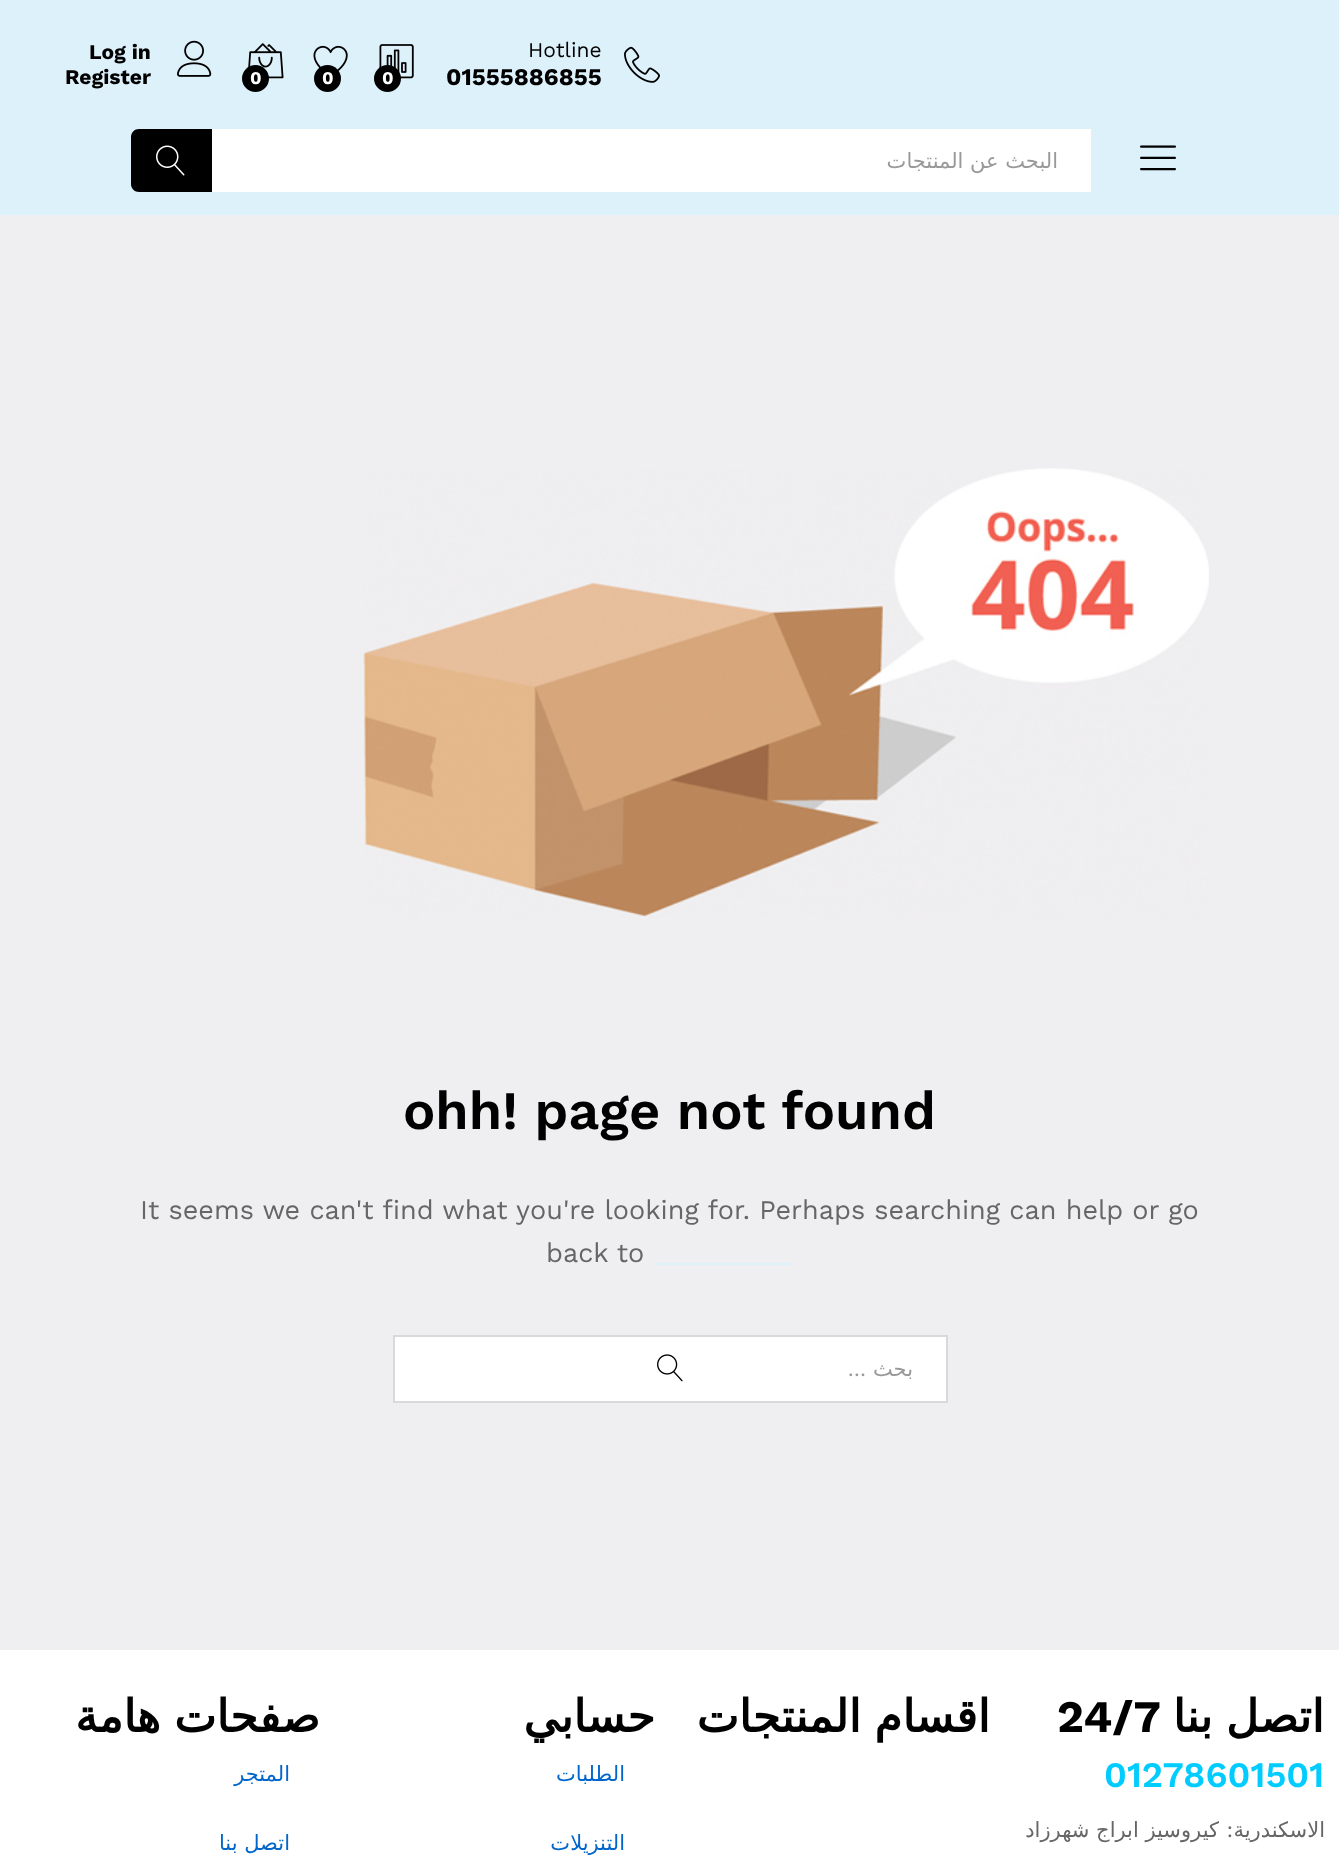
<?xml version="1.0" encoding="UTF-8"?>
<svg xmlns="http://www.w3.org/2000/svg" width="1339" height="1855">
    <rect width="100%" height="100%" fill="#FFFFFF"/>
    <rect x="0" y="0" width="1339" height="215" fill="#DDF1FA"/>
    <text x="89" y="59" font-family="Work Sans" font-size="21" font-weight="700" fill="#000000">Log in</text>
    <image x="177" y="40" width="35" height="37" href="img_01.png"/>
    <text x="65" y="84" font-family="Work Sans" font-size="21" font-weight="700" fill="#000000">Register</text>
    <image x="248" y="43" width="36" height="36" href="img_02.png"/>
    <circle cx="255.5" cy="78.5" r="13.5" fill="#000000"/>
    <text x="250" y="84" font-family="Work Sans" font-size="18" font-weight="700" fill="#FFFFFF">0</text>
    <image x="313" y="45" width="35" height="27" href="img_03.png"/>
    <circle cx="327.5" cy="78.5" r="13.5" fill="#000000"/>
    <text x="322" y="84" font-family="Work Sans" font-size="18" font-weight="700" fill="#FFFFFF">0</text>
    <image x="379" y="44" width="35" height="35" href="img_04.png"/>
    <circle cx="387.5" cy="78.5" r="13.5" fill="#000000"/>
    <text x="382" y="84" font-family="Work Sans" font-size="18" font-weight="700" fill="#FFFFFF">0</text>
    <text x="528" y="57" font-family="Work Sans" font-size="21" fill="#000000">Hotline</text>
    <text x="446" y="85" font-family="Work Sans" font-size="24" font-weight="700" fill="#000000">01555886855</text>
    <image x="624" y="46" width="36" height="37" href="img_05.png"/>
    <path d="M 139 129 H 212 V 192 H 139 C 134.5 192 131 188.5 131 184 V 137 C 131 132.5 134.5 129 139 129 Z" fill="#000000"/>
    <image x="156" y="145" width="29" height="31" href="img_06.png"/>
    <rect x="212" y="129" width="879" height="63" fill="#FFFFFF"/>
    <text x="1058" y="168" font-family="DejaVu Sans" font-size="21" direction="rtl" fill="#999999">البحث عن المنتجات</text>
    <image x="1140" y="145" width="36" height="26" href="img_07.png"/>
    <rect x="0" y="215" width="1339" height="1435" fill="#EFEEF0"/>
    <image x="362" y="468" width="847" height="450" href="img_08.png"/>
    <text x="403" y="1129" font-family="Work Sans" font-size="54" font-weight="600" fill="#000000">ohh! page not found</text>
    <text x="140" y="1219" font-family="Work Sans" font-size="27" fill="#666666">It seems we can't find what you're looking for. Perhaps searching can help or go</text>
    <text x="546" y="1262" font-family="Work Sans" font-size="27" fill="#666666">back to</text>
    <rect x="654" y="1263" width="140" height="2" fill="#DDF1FA"/>
    <rect x="394" y="1336" width="553" height="66" fill="#FFFFFF" stroke="#D9D9D9" stroke-width="2"/>
    <image x="657" y="1354" width="26" height="28" href="img_09.png"/>
    <text x="866" y="1376" font-family="Work Sans" font-size="21" direction="rtl" fill="#999999">…</text>
    <text x="913" y="1376" font-family="DejaVu Sans" font-size="21" direction="rtl" fill="#999999">بحث</text>
    <text x="320" y="1732" word-spacing="-1" font-family="DejaVu Sans" font-size="45" font-weight="700" direction="rtl" fill="#000000">صفحات هامة</text>
    <text x="290" y="1781" font-family="DejaVu Sans" font-size="21" direction="rtl" fill="#0066CC">المتجر</text>
    <text x="290" y="1850" font-family="DejaVu Sans" font-size="21" direction="rtl" fill="#0066CC">اتصل بنا</text>
    <text x="655" y="1732" font-family="DejaVu Sans" font-size="45" font-weight="700" direction="rtl" fill="#000000">حسابي</text>
    <text x="625" y="1781" font-family="DejaVu Sans" font-size="21" direction="rtl" fill="#0066CC">الطلبات</text>
    <text x="625" y="1850" font-family="DejaVu Sans" font-size="21" direction="rtl" fill="#0066CC">التنزيلات</text>
    <text x="990" y="1732" word-spacing="-1" font-family="DejaVu Sans" font-size="45" font-weight="700" direction="rtl" fill="#000000">اقسام المنتجات</text>
    <text x="1057" y="1732" font-family="Work Sans" font-size="45" font-weight="700" fill="#000000">24/7</text>
    <text x="1324" y="1732" word-spacing="-1" font-family="DejaVu Sans" font-size="45" font-weight="700" direction="rtl" fill="#000000">اتصل بنا</text>
    <text x="1104" y="1787" font-family="Work Sans" font-size="36" font-weight="600" fill="#00CCFF">01278601501</text>
    <text x="1219" y="1837" font-family="DejaVu Sans" font-size="21" direction="rtl" fill="#666666">كيروسيز ابراج شهرزاد</text>
    <text x="1233" y="1837" font-family="Work Sans" font-size="21" direction="rtl" fill="#666666">:</text>
    <text x="1325" y="1837" font-family="DejaVu Sans" font-size="21" direction="rtl" fill="#666666">الاسكندرية</text>
</svg>
